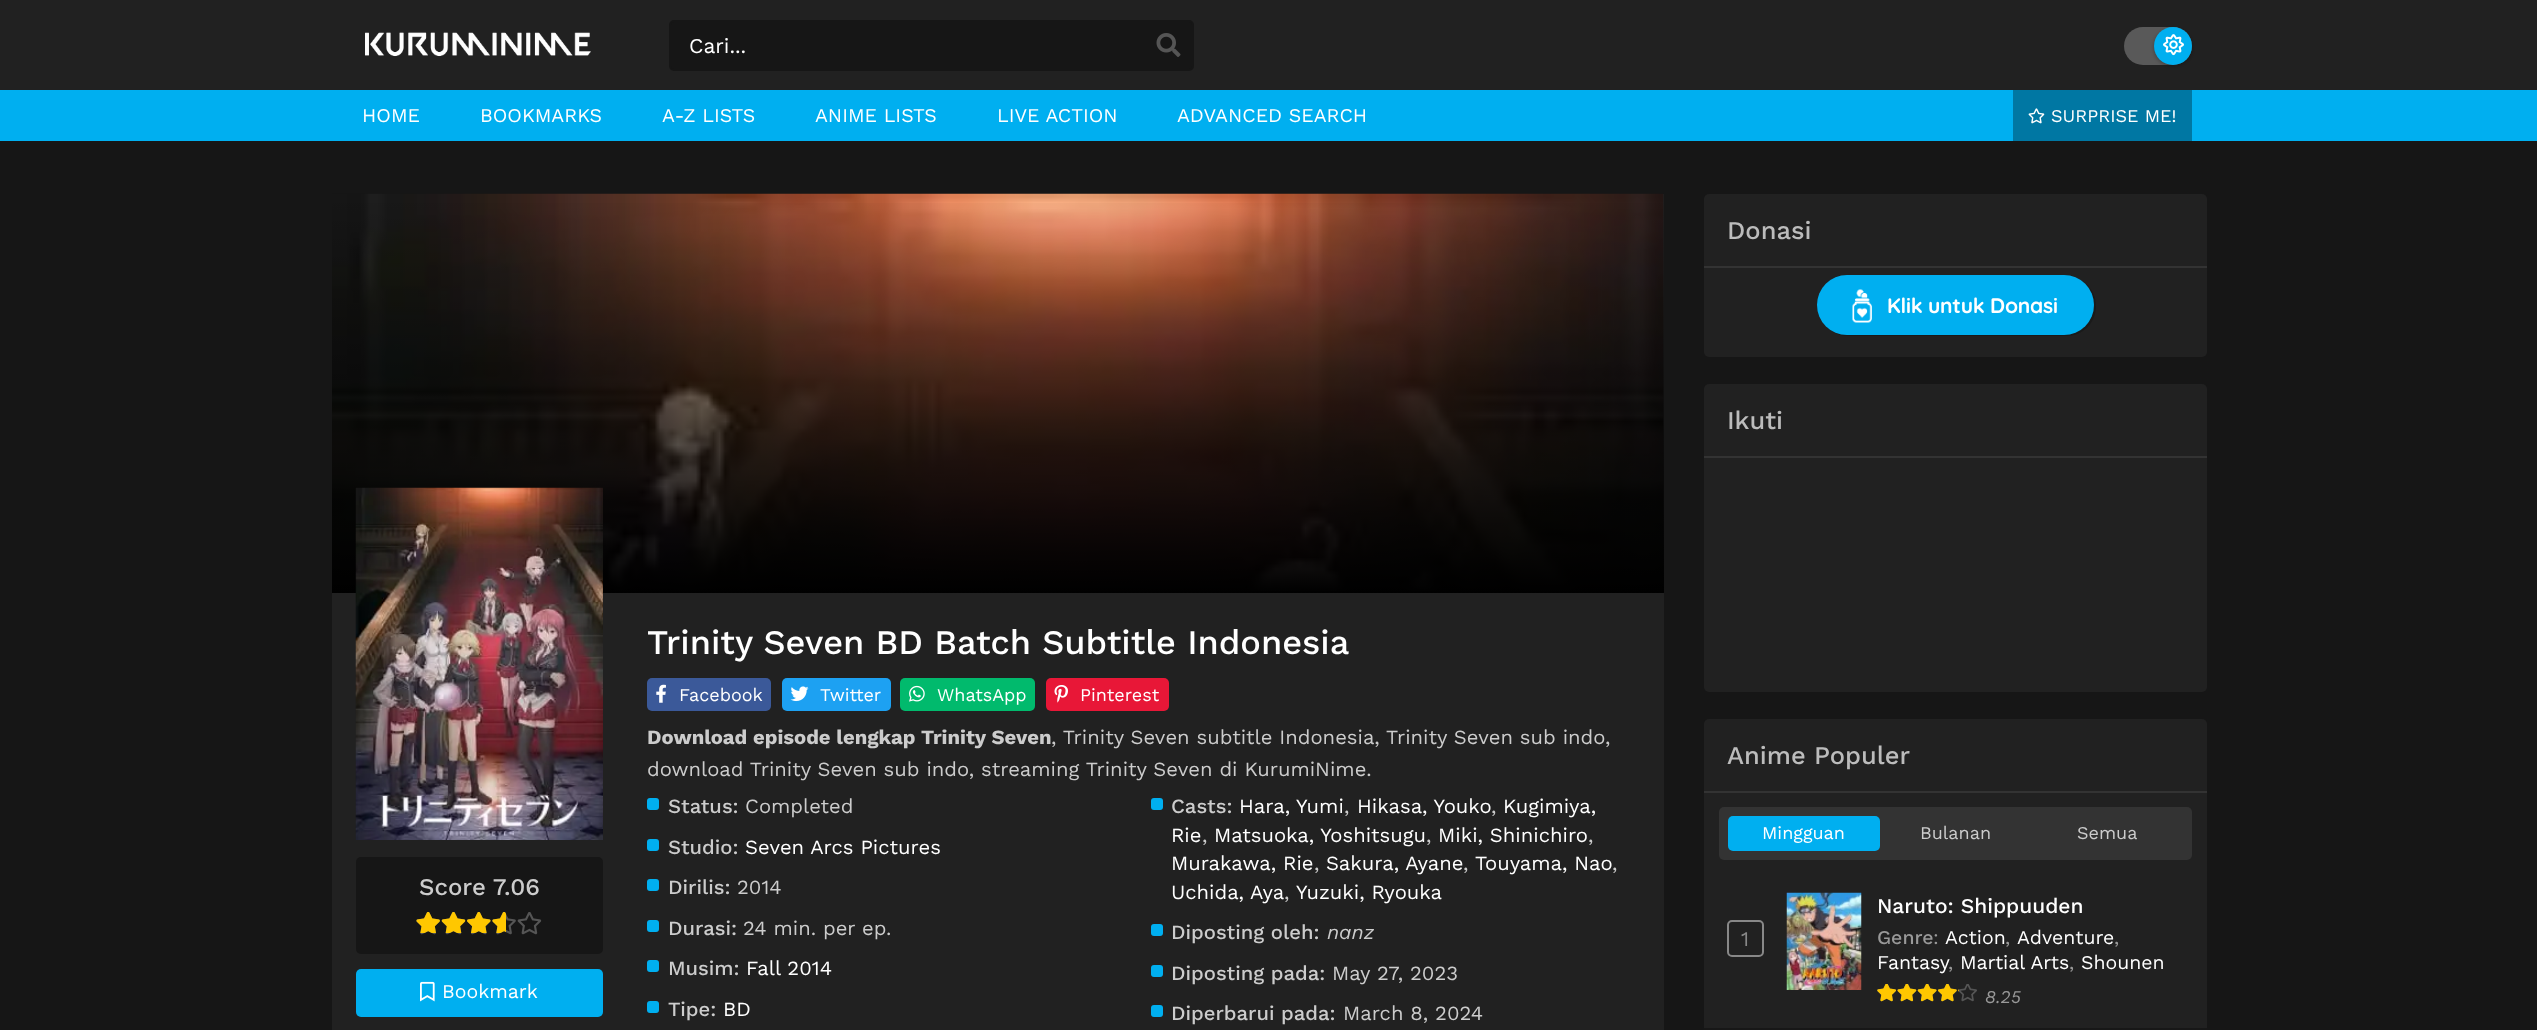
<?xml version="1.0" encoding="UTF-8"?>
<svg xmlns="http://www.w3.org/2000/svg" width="2537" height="1030">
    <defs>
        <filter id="blur1" x="-50%" y="-200%" width="200%" height="500%"><feGaussianBlur stdDeviation="2"/></filter>
        <linearGradient id="g1" gradientUnits="userSpaceOnUse" x1="998" y1="593" x2="998" y2="194"><stop offset="0" stop-color="#000000"/><stop offset="1" stop-color="#000000" stop-opacity="0"/></linearGradient>
    </defs>
    <rect width="100%" height="100%" fill="#161616"/>
    <rect x="0" y="0" width="2537" height="90" fill="#212121"/>
    <image x="365" y="32" width="226" height="25" href="img_01.png"/>
    <rect x="670" y="21" width="523" height="49" rx="4" fill="#161616" stroke="#161616" stroke-width="2"/>
    <text x="689" y="53" font-family="Work Sans" font-size="21" fill="#FFFFFF">Cari...</text>
    <image x="1156" y="33" width="25" height="24" href="img_02.png"/>
    <rect x="2124" y="27" width="68" height="38" rx="19" fill="#595959"/>
    <rect x="2154" y="29" width="38" height="37" rx="18.5" fill="#000000" fill-opacity="0.3" filter="url(#blur1)"/>
    <circle cx="2173" cy="46" r="19" fill="#00AFF0"/>
    <image x="2163" y="34" width="21" height="22" href="img_03.png"/>
    <rect x="0" y="90" width="2537" height="51" fill="#00AFF0"/>
    <text x="362" y="122" font-family="Work Sans" font-size="19.5" fill="#FFFFFF">HOME</text>
    <text x="480" y="122" font-family="Work Sans" font-size="19.5" fill="#FFFFFF">BOOKMARKS</text>
    <text x="662" y="122" font-family="Work Sans" font-size="19.5" fill="#FFFFFF">A-Z LISTS</text>
    <text x="815" y="122" font-family="Work Sans" font-size="19.5" fill="#FFFFFF">ANIME LISTS</text>
    <text x="997" y="122" font-family="Work Sans" font-size="19.5" fill="#FFFFFF">LIVE ACTION</text>
    <text x="1177" y="122" font-family="Work Sans" font-size="19.5" fill="#FFFFFF">ADVANCED SEARCH</text>
    <rect x="2013" y="90" width="179" height="51" fill="#0077A3"/>
    <image x="2028" y="108" width="17" height="16" href="img_04.png"/>
    <text x="2051" y="122" font-family="Work Sans" font-size="18" fill="#FFFFFF">SURPRISE ME!</text>
    <rect x="332" y="194" width="1332" height="836" fill="#212121"/>
    <image x="332" y="193" width="1332" height="398" href="img_05.png"/>
    <rect x="332" y="203" width="1332" height="390" fill="url(#g1)"/>
    <image x="355" y="487" width="248" height="353" href="img_06.png"/>
    <rect x="356" y="857" width="247" height="97" rx="5" fill="#161616"/>
    <text x="419" y="895" font-family="Work Sans" font-size="24" font-weight="500" fill="#CCCCCC">Score 7.06</text>
    <image x="416" y="912" width="126" height="23" href="img_07.png"/>
    <image x="416" y="912" width="90" height="21" href="img_08.png"/>
    <rect x="356" y="969" width="247" height="48" rx="5" fill="#00AFF0"/>
    <image x="420" y="981" width="15" height="21" href="img_09.png"/>
    <text x="442" y="998" font-family="Work Sans" font-size="19.5" fill="#FFFFFF">Bookmark</text>
    <text x="647" y="654" font-family="Work Sans" font-size="34.4" font-weight="500" fill="#FFFFFF">Trinity Seven BD Batch Subtitle Indonesia</text>
    <rect x="647" y="678" width="124" height="33" rx="5" fill="#3B5999"/>
    <image x="656" y="684" width="10" height="19" href="img_10.png"/>
    <text x="679" y="701" font-family="Work Sans" font-size="18" fill="#FFFFFF">Facebook</text>
    <rect x="782" y="678" width="109" height="33" rx="5" fill="#1DA1F2"/>
    <image x="790" y="686" width="19" height="16" href="img_11.png"/>
    <text x="820" y="701" font-family="Work Sans" font-size="18" fill="#FFFFFF">Twitter</text>
    <rect x="900" y="678" width="135" height="33" rx="5" fill="#01BA6D"/>
    <image x="909" y="685" width="16" height="17" href="img_12.png"/>
    <text x="937" y="701" font-family="Work Sans" font-size="18" fill="#FFFFFF">WhatsApp</text>
    <rect x="1046" y="678" width="123" height="33" rx="5" fill="#E81737"/>
    <image x="1054" y="685" width="14" height="18" href="img_13.png"/>
    <text x="1080" y="701" font-family="Work Sans" font-size="18" fill="#FFFFFF">Pinterest</text>
    <text x="647" y="744" font-family="Work Sans" font-size="20.25" font-weight="700" fill="#CCCCCC">Download episode lengkap Trinity Seven</text>
    <text x="1051" y="744" font-family="Work Sans" font-size="20.25" fill="#CCCCCC">, Trinity Seven subtitle Indonesia, Trinity Seven sub indo,</text>
    <text x="647" y="776" font-family="Work Sans" font-size="20.25" fill="#CCCCCC">download Trinity Seven sub indo, streaming Trinity Seven di KurumiNime.</text>
    <rect x="647" y="798" width="12" height="12" rx="3" fill="#00AFF0"/>
    <text x="668" y="813" font-family="Work Sans" font-size="20.25" font-weight="500" fill="#CCCCCC">Status:</text>
    <text x="745" y="813" font-family="Work Sans" font-size="20.25" fill="#CCCCCC">Completed</text>
    <rect x="1151" y="798" width="12" height="12" rx="3" fill="#00AFF0"/>
    <text x="1171" y="813" font-family="Work Sans" font-size="20.25" font-weight="500" fill="#CCCCCC">Casts:</text>
    <text x="1239" y="813" font-family="Work Sans" font-size="20.25" fill="#FFFFFF">Hara, Yumi</text>
    <text x="1344" y="813" font-family="Work Sans" font-size="20.25" fill="#CCCCCC">,</text>
    <text x="1357" y="813" font-family="Work Sans" font-size="20.25" fill="#FFFFFF">Hikasa, Youko</text>
    <text x="1491" y="813" font-family="Work Sans" font-size="20.25" fill="#CCCCCC">,</text>
    <text x="1503" y="813" font-family="Work Sans" font-size="20.25" fill="#FFFFFF">Kugimiya,</text>
    <text x="1171" y="842" font-family="Work Sans" font-size="20.25" fill="#FFFFFF">Rie</text>
    <text x="1202" y="842" font-family="Work Sans" font-size="20.25" fill="#CCCCCC">,</text>
    <text x="1214" y="842" font-family="Work Sans" font-size="20.25" fill="#FFFFFF">Matsuoka, Yoshitsugu</text>
    <text x="1426" y="842" font-family="Work Sans" font-size="20.25" fill="#CCCCCC">,</text>
    <text x="1438" y="842" font-family="Work Sans" font-size="20.25" fill="#FFFFFF">Miki, Shinichiro</text>
    <text x="1588" y="842" font-family="Work Sans" font-size="20.25" fill="#CCCCCC">,</text>
    <text x="1171" y="870" font-family="Work Sans" font-size="20.25" fill="#FFFFFF">Murakawa, Rie</text>
    <text x="1314" y="870" font-family="Work Sans" font-size="20.25" fill="#CCCCCC">,</text>
    <text x="1326" y="870" font-family="Work Sans" font-size="20.25" fill="#FFFFFF">Sakura, Ayane</text>
    <text x="1463" y="870" font-family="Work Sans" font-size="20.25" fill="#CCCCCC">,</text>
    <text x="1475" y="870" font-family="Work Sans" font-size="20.25" fill="#FFFFFF">Touyama, Nao</text>
    <text x="1612" y="870" font-family="Work Sans" font-size="20.25" fill="#CCCCCC">,</text>
    <text x="1171" y="899" font-family="Work Sans" font-size="20.25" fill="#FFFFFF">Uchida, Aya</text>
    <text x="1284" y="899" font-family="Work Sans" font-size="20.25" fill="#CCCCCC">,</text>
    <text x="1296" y="899" font-family="Work Sans" font-size="20.25" fill="#FFFFFF">Yuzuki, Ryouka</text>
    <rect x="647" y="839" width="12" height="12" rx="3" fill="#00AFF0"/>
    <text x="668" y="854" font-family="Work Sans" font-size="20.25" font-weight="500" fill="#CCCCCC">Studio:</text>
    <text x="745" y="854" font-family="Work Sans" font-size="20.25" fill="#FFFFFF">Seven Arcs Pictures</text>
    <rect x="647" y="879" width="12" height="12" rx="3" fill="#00AFF0"/>
    <text x="668" y="894" font-family="Work Sans" font-size="20.25" font-weight="500" fill="#CCCCCC">Dirilis:</text>
    <text x="737" y="894" font-family="Work Sans" font-size="20.25" fill="#CCCCCC">2014</text>
    <rect x="647" y="920" width="12" height="12" rx="3" fill="#00AFF0"/>
    <text x="668" y="935" font-family="Work Sans" font-size="20.25" font-weight="500" fill="#CCCCCC">Durasi:</text>
    <text x="743" y="935" font-family="Work Sans" font-size="20.25" fill="#CCCCCC">24 min. per ep.</text>
    <rect x="1151" y="924" width="12" height="12" rx="3" fill="#00AFF0"/>
    <text x="1171" y="939" font-family="Work Sans" font-size="20.25" font-weight="500" fill="#CCCCCC">Diposting oleh:</text>
    <text x="1327" y="939" font-family="Work Sans" font-size="20.25" font-style="italic" fill="#CCCCCC">nanz</text>
    <rect x="647" y="960" width="12" height="12" rx="3" fill="#00AFF0"/>
    <text x="668" y="975" font-family="Work Sans" font-size="20.25" font-weight="500" fill="#CCCCCC">Musim:</text>
    <text x="746" y="975" font-family="Work Sans" font-size="20.25" fill="#FFFFFF">Fall 2014</text>
    <rect x="1151" y="965" width="12" height="12" rx="3" fill="#00AFF0"/>
    <text x="1171" y="980" font-family="Work Sans" font-size="20.25" font-weight="500" fill="#CCCCCC">Diposting pada:</text>
    <text x="1332" y="980" font-family="Work Sans" font-size="20.25" fill="#CCCCCC">May 27, 2023</text>
    <rect x="647" y="1001" width="12" height="12" rx="3" fill="#00AFF0"/>
    <text x="668" y="1016" font-family="Work Sans" font-size="20.25" font-weight="500" fill="#CCCCCC">Tipe:</text>
    <text x="723" y="1016" font-family="Work Sans" font-size="20.25" fill="#FFFFFF">BD</text>
    <rect x="1151" y="1005" width="12" height="12" rx="3" fill="#00AFF0"/>
    <text x="1171" y="1020" font-family="Work Sans" font-size="20.25" font-weight="500" fill="#CCCCCC">Diperbarui pada:</text>
    <text x="1343" y="1020" font-family="Work Sans" font-size="20.25" fill="#CCCCCC">March 8, 2024</text>
    <rect x="1704" y="194" width="503" height="163" rx="5" fill="#212121"/>
    <rect x="1704" y="266" width="503" height="2" fill="#333333"/>
    <text x="1727" y="239" font-family="Work Sans" font-size="25.5" font-weight="500" fill="#BCBCBC">Donasi</text>
    <path d="M 1826 326 C 1832 332 1839 336 1848 336 H 2066 C 2083 336 2096 323 2096 306 C 2096 296 2091 287 2083 281 C 2090 287 2094 295 2094 304 C 2094 321 2081 334 2064 334 H 1846 C 1839 334 1831 331 1826 326 Z" fill="#1A1A1A"/>
    <rect x="1817" y="275" width="277" height="60" rx="30" fill="#00AFF0"/>
    <image x="1852" y="289" width="20" height="34" href="img_14.png"/>
    <text x="1887" y="313" font-family="Quicksand" font-size="21" font-weight="700" letter-spacing="-0.25" fill="#FFFFFF">Klik untuk Donasi</text>
    <rect x="1704" y="384" width="503" height="308" rx="5" fill="#212121"/>
    <rect x="1704" y="456" width="503" height="2" fill="#333333"/>
    <text x="1727" y="429" font-family="Work Sans" font-size="25.5" font-weight="500" fill="#BCBCBC">Ikuti</text>
    <rect x="1704" y="719" width="503" height="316" rx="5" fill="#212121"/>
    <rect x="1704" y="791" width="503" height="2" fill="#333333"/>
    <text x="1727" y="764" font-family="Work Sans" font-size="25.5" font-weight="500" fill="#BCBCBC">Anime Populer</text>
    <rect x="1719" y="807" width="473" height="53" rx="5" fill="#333333"/>
    <rect x="1728" y="816" width="152" height="35" rx="5" fill="#00AFF0"/>
    <text x="1762" y="839" font-family="Work Sans" font-size="18" fill="#FFFFFF">Mingguan</text>
    <text x="1920" y="839" font-family="Work Sans" font-size="18" fill="#CCCCCC">Bulanan</text>
    <text x="2077" y="839" font-family="Work Sans" font-size="18" fill="#CCCCCC">Semua</text>
    <rect x="1704" y="1028" width="503" height="2" fill="#171717"/>
    <rect x="1728" y="921" width="35" height="35" rx="4" fill="none" stroke="#888888" stroke-width="2"/>
    <text x="1741" y="946" font-family="Work Sans" font-size="21" fill="#888888">1</text>
    <image x="1786" y="892" width="76" height="98" href="img_15.png"/>
    <text x="1877" y="913" font-family="Work Sans" font-size="21" font-weight="500" fill="#FFFFFF">Naruto: Shippuuden</text>
    <text x="1877" y="944" font-family="Work Sans" font-size="19.5" font-weight="500" fill="#999999">Genre</text>
    <text x="1933" y="944" font-family="Work Sans" font-size="19.5" fill="#999999">:</text>
    <text x="1945" y="944" font-family="Work Sans" font-size="19.5" fill="#FFFFFF">Action</text>
    <text x="2005" y="944" font-family="Work Sans" font-size="19.5" fill="#999999">,</text>
    <text x="2017" y="944" font-family="Work Sans" font-size="19.5" fill="#FFFFFF">Adventure</text>
    <text x="2114" y="944" font-family="Work Sans" font-size="19.5" fill="#999999">,</text>
    <text x="1877" y="969" font-family="Work Sans" font-size="19.5" fill="#FFFFFF">Fantasy</text>
    <text x="1948" y="969" font-family="Work Sans" font-size="19.5" fill="#999999">,</text>
    <text x="1960" y="969" font-family="Work Sans" font-size="19.5" fill="#FFFFFF">Martial Arts</text>
    <text x="2069" y="969" font-family="Work Sans" font-size="19.5" fill="#999999">,</text>
    <text x="2081" y="969" font-family="Work Sans" font-size="19.5" fill="#FFFFFF">Shounen</text>
    <image x="1877" y="984" width="100" height="18" href="img_16.png"/>
    <image x="1877" y="984" width="82" height="18" href="img_17.png"/>
    <text x="1985" y="1003" font-family="Work Sans" font-size="18" font-style="italic" fill="#999999">8.25</text>
</svg>
